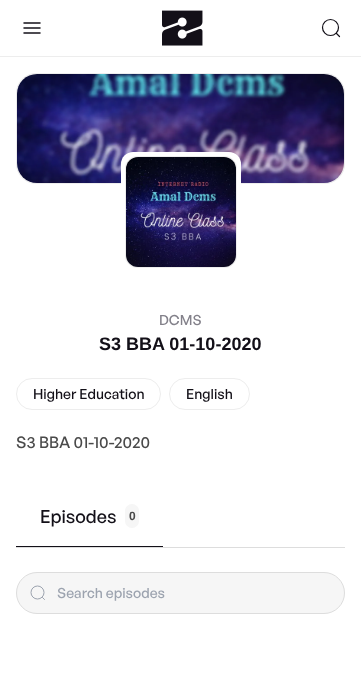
<?xml version="1.0" encoding="UTF-8"?>
<svg xmlns="http://www.w3.org/2000/svg" width="361" height="684">
    <rect width="100%" height="100%" fill="#FFFFFF"/>
    <rect x="0" y="56" width="361" height="1" fill="#EDEDED"/>
    <path d="M 40 23 H 24 M 40 28 H 24 M 40 33 H 24" fill="none" stroke="#131018" stroke-width="1.5" stroke-linecap="round"/>
    <image x="162" y="10" width="41" height="36" href="img_01.png"/>
    <circle cx="330.5" cy="27.5" r="8" fill="none" stroke="#131018" stroke-width="1.2"/>
    <path d="M 336.5 33.5 L 339.5 36.5" fill="none" stroke="#131018" stroke-width="1.2" stroke-linecap="round"/>
    <rect x="16.5" y="73.5" width="328" height="110" rx="19.5" fill="#F6F6F6" stroke="#EDEDED"/>
    <image x="17" y="74" width="327" height="109" href="img_02.png"/>
    <rect x="121" y="152" width="120" height="120" rx="12" fill="#FFFFFF"/>
    <rect x="125.5" y="156.5" width="111" height="111" rx="11.5" fill="#F6F6F6" stroke="#EDEDED"/>
    <image x="126" y="157" width="110" height="110" href="img_03.png"/>
    <text x="159" y="325" font-family="General Sans" font-size="14" font-weight="500" fill="#83818A">DCMS</text>
    <text x="99" y="350" font-family="Liberation Sans" font-size="18" font-weight="700" fill="#131018">S3 BBA 01-10-2020</text>
    <rect x="16.5" y="378.5" width="144" height="31" rx="15.5" fill="none" stroke="#EDEDED"/>
    <text x="33" y="399" font-family="General Sans" font-size="14" font-weight="500" fill="#131018">Higher Education</text>
    <rect x="169.5" y="378.5" width="80" height="31" rx="15.5" fill="none" stroke="#EDEDED"/>
    <text x="186" y="399" font-family="General Sans" font-size="14" font-weight="500" fill="#131018">English</text>
    <text x="16" y="448" font-family="General Sans" font-size="16" font-weight="500" fill="#4A4A4A">S3 BBA 01-10-2020</text>
    <rect x="16" y="547" width="329" height="1" fill="#DDDDDD"/>
    <rect x="16" y="546" width="147" height="1" fill="#131018"/>
    <text x="40" y="523" font-family="General Sans" font-size="18" font-weight="500" fill="#131018">Episodes</text>
    <rect x="125" y="504" width="14" height="24" rx="7" fill="#F6F6F6"/>
    <text x="129" y="520" font-family="Liberation Sans" font-size="12" font-weight="700" fill="#4A4A4A">0</text>
    <rect x="16.5" y="572.5" width="328" height="41" rx="20.5" fill="#F6F6F6" stroke="#DDDDDD"/>
    <circle cx="37.5" cy="592.5" r="6.5" fill="none" stroke="#9CA3AF"/>
    <path d="M 42.5 597.5 L 44.5 599.5" fill="none" stroke="#9CA3AF" stroke-linecap="round"/>
    <text x="57" y="598" font-family="General Sans" font-size="14" font-weight="500" fill="#9CA3AF">Search episodes</text>
</svg>
